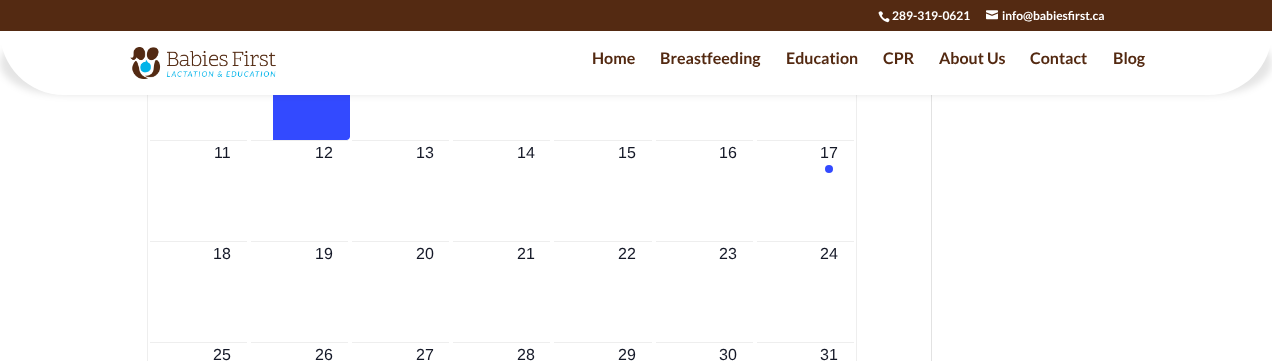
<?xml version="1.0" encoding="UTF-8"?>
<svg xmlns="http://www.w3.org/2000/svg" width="1272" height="361">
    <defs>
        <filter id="blur1" x="-50%" y="-200%" width="200%" height="500%"><feGaussianBlur stdDeviation="3.5"/></filter>
    </defs>
    <rect width="100%" height="100%" fill="#FFFFFF"/>
    <rect x="856" y="95" width="1" height="266" fill="#EEEEEE"/>
    <rect x="147" y="95" width="1" height="266" fill="#EEEEEE"/>
    <path d="M 273 40 V 140 H 347 L 349 139 L 350 137 V 43 C 350 41 348 40 346 40 Z" fill="#334AFF"/>
    <rect x="931" y="95" width="1" height="266" fill="#E2E2E2"/>
    <rect x="0" y="31" width="1272" height="64" rx="64" fill="#000000" fill-opacity="0.1" filter="url(#blur1)"/>
    <rect x="0" y="0" width="1272" height="31" fill="#542A12"/>
    <image x="878" y="11" width="12" height="12" href="img_01.png"/>
    <text x="892" y="20" font-family="Lato" font-size="12" font-weight="700" fill="#FFFFFF">289-319-0621</text>
    <image x="986" y="10" width="12" height="10" href="img_02.png"/>
    <text x="1002" y="20" font-family="Lato" font-size="12" font-weight="700" fill="#FFFFFF">info@babiesfirst.ca</text>
    <path d="M 0 31 H 1272 C 1272 66.5 1243.5 95 1208 95 H 64 C 28.5 95 0 66.5 0 31 Z" fill="#FFFFFF"/>
    <image x="130" y="47" width="146" height="32" href="img_03.png"/>
    <text x="592" y="64" font-family="Lato" font-size="16" font-weight="700" fill="#532911">Home</text>
    <text x="660" y="64" font-family="Lato" font-size="16" font-weight="700" fill="#532911">Breastfeeding</text>
    <text x="786" y="64" font-family="Lato" font-size="16" font-weight="700" fill="#532911">Education</text>
    <text x="883" y="64" font-family="Lato" font-size="16" font-weight="700" fill="#532911">CPR</text>
    <text x="939" y="64" font-family="Lato" font-size="16" font-weight="700" fill="#532911">About Us</text>
    <text x="1030" y="64" font-family="Lato" font-size="16" font-weight="700" fill="#532911">Contact</text>
    <text x="1113" y="64" font-family="Lato" font-size="16" font-weight="700" fill="#532911">Blog</text>
    <rect x="150" y="140" width="97" height="1" fill="#EEEEEE"/>
    <text x="214" y="158" font-family="Liberation Sans" font-size="16" fill="#141827">11</text>
    <rect x="251" y="140" width="97" height="1" fill="#EEEEEE"/>
    <text x="315" y="158" font-family="Liberation Sans" font-size="16" fill="#141827">12</text>
    <rect x="352" y="140" width="97" height="1" fill="#EEEEEE"/>
    <text x="416" y="158" font-family="Liberation Sans" font-size="16" fill="#141827">13</text>
    <rect x="453" y="140" width="97" height="1" fill="#EEEEEE"/>
    <text x="517" y="158" font-family="Liberation Sans" font-size="16" fill="#141827">14</text>
    <rect x="554" y="140" width="98" height="1" fill="#EEEEEE"/>
    <text x="618" y="158" font-family="Liberation Sans" font-size="16" fill="#141827">15</text>
    <rect x="656" y="140" width="97" height="1" fill="#EEEEEE"/>
    <text x="719" y="158" font-family="Liberation Sans" font-size="16" fill="#141827">16</text>
    <rect x="757" y="140" width="97" height="1" fill="#EEEEEE"/>
    <text x="820" y="158" font-family="Liberation Sans" font-size="16" fill="#141827">17</text>
    <circle cx="829" cy="169" r="4" fill="#334AFF"/>
    <rect x="150" y="241" width="97" height="1" fill="#EEEEEE"/>
    <text x="213" y="259" font-family="Liberation Sans" font-size="16" fill="#141827">18</text>
    <rect x="251" y="241" width="97" height="1" fill="#EEEEEE"/>
    <text x="315" y="259" font-family="Liberation Sans" font-size="16" fill="#141827">19</text>
    <rect x="352" y="241" width="97" height="1" fill="#EEEEEE"/>
    <text x="416" y="259" font-family="Liberation Sans" font-size="16" fill="#141827">20</text>
    <rect x="453" y="241" width="97" height="1" fill="#EEEEEE"/>
    <text x="517" y="259" font-family="Liberation Sans" font-size="16" fill="#141827">21</text>
    <rect x="554" y="241" width="98" height="1" fill="#EEEEEE"/>
    <text x="618" y="259" font-family="Liberation Sans" font-size="16" fill="#141827">22</text>
    <rect x="656" y="241" width="97" height="1" fill="#EEEEEE"/>
    <text x="719" y="259" font-family="Liberation Sans" font-size="16" fill="#141827">23</text>
    <rect x="757" y="241" width="97" height="1" fill="#EEEEEE"/>
    <text x="820" y="259" font-family="Liberation Sans" font-size="16" fill="#141827">24</text>
    <rect x="150" y="342" width="97" height="1" fill="#EEEEEE"/>
    <text x="213" y="360" font-family="Liberation Sans" font-size="16" fill="#141827">25</text>
    <rect x="251" y="342" width="97" height="1" fill="#EEEEEE"/>
    <text x="315" y="360" font-family="Liberation Sans" font-size="16" fill="#141827">26</text>
    <rect x="352" y="342" width="97" height="1" fill="#EEEEEE"/>
    <text x="416" y="360" font-family="Liberation Sans" font-size="16" fill="#141827">27</text>
    <rect x="453" y="342" width="97" height="1" fill="#EEEEEE"/>
    <text x="517" y="360" font-family="Liberation Sans" font-size="16" fill="#141827">28</text>
    <rect x="554" y="342" width="98" height="1" fill="#EEEEEE"/>
    <text x="618" y="360" font-family="Liberation Sans" font-size="16" fill="#141827">29</text>
    <rect x="656" y="342" width="97" height="1" fill="#EEEEEE"/>
    <text x="719" y="360" font-family="Liberation Sans" font-size="16" fill="#141827">30</text>
    <rect x="757" y="342" width="97" height="1" fill="#EEEEEE"/>
    <text x="820" y="360" font-family="Liberation Sans" font-size="16" fill="#141827">31</text>
</svg>
